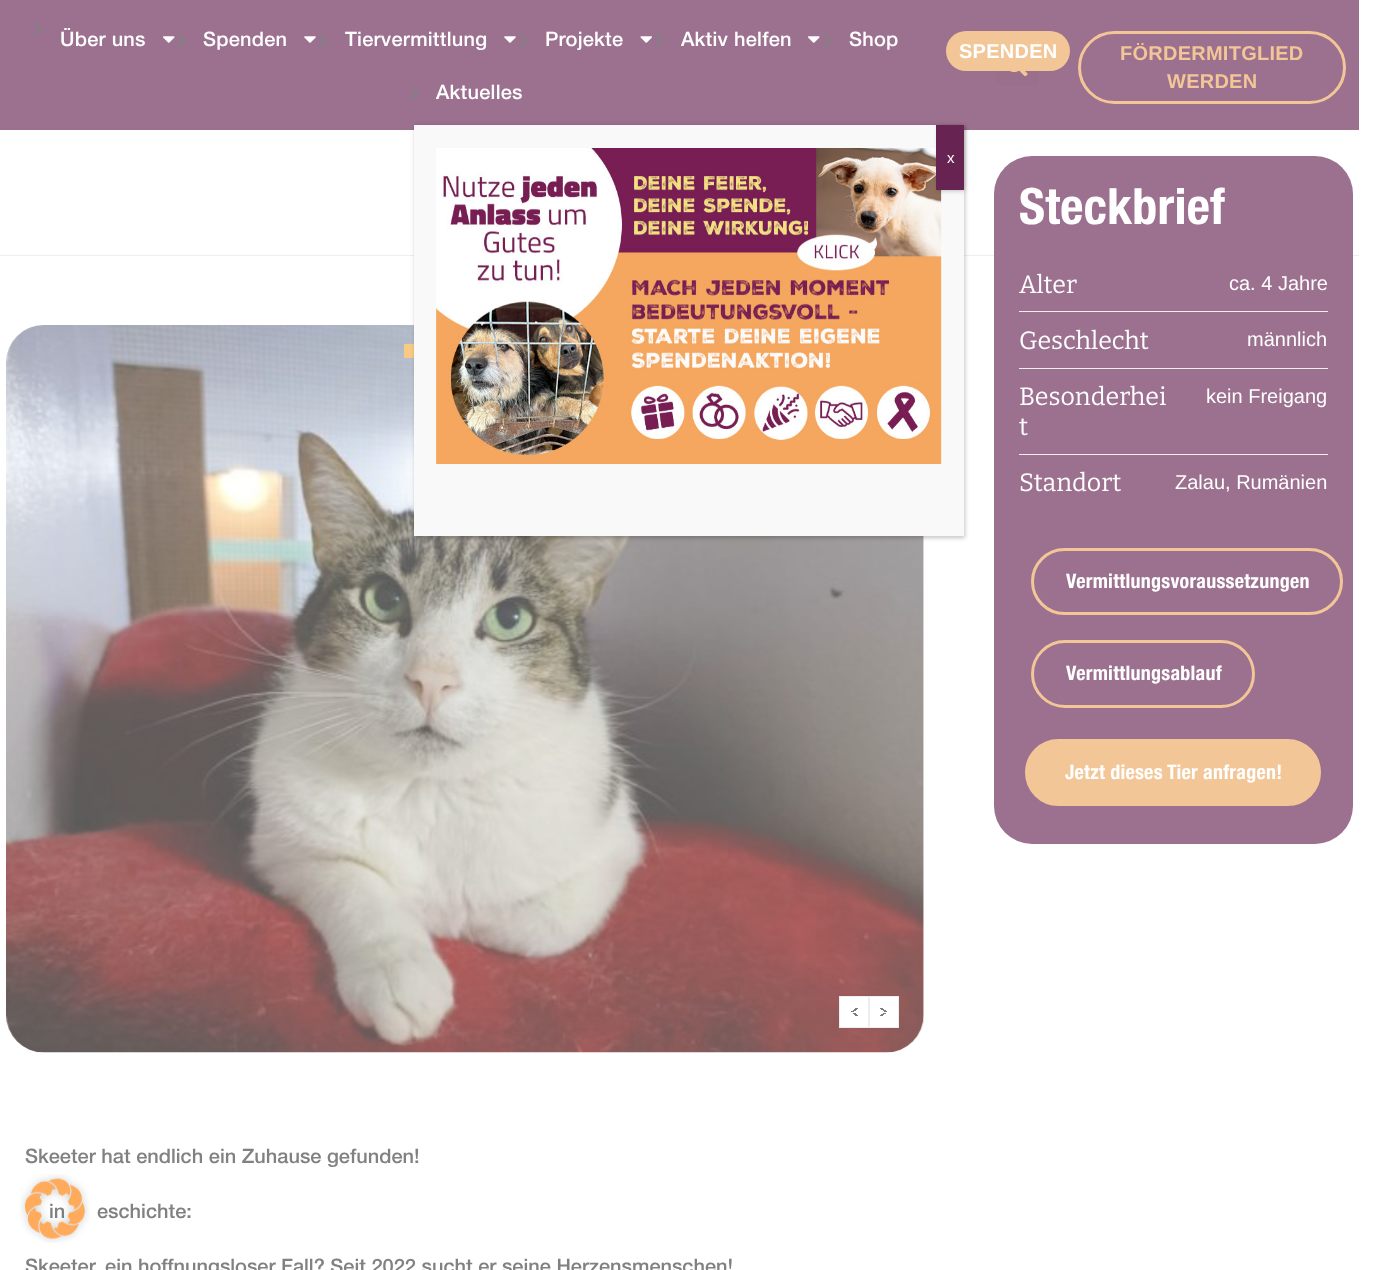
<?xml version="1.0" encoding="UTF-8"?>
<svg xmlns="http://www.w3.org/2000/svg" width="1377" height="1270">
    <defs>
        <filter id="blur1" x="-50%" y="-200%" width="200%" height="500%"><feGaussianBlur stdDeviation="2"/></filter>
    </defs>
    <rect width="100%" height="100%" fill="#FFFFFF"/>
    <rect x="0" y="0" width="1359" height="130" fill="#9C708F"/>
    <image x="34" y="21" width="8" height="15" href="img_01.png"/>
    <text x="60" y="46" font-family="Helvetica Neue" font-size="20" font-weight="500" letter-spacing="0.25" fill="#FFFFFF">Über uns</text>
    <image x="163" y="36" width="12" height="7" href="img_02.png"/>
    <image x="177" y="34" width="9" height="14" href="img_03.png"/>
    <text x="203" y="46" font-family="Helvetica Neue" font-size="20" font-weight="500" letter-spacing="0.25" fill="#FFFFFF">Spenden</text>
    <image x="304" y="36" width="12" height="7" href="img_04.png"/>
    <image x="319" y="34" width="8" height="14" href="img_05.png"/>
    <text x="345" y="46" font-family="Helvetica Neue" font-size="20" font-weight="500" letter-spacing="0.25" fill="#FFFFFF">Tiervermittlung</text>
    <image x="504" y="36" width="12" height="7" href="img_04.png"/>
    <image x="519" y="34" width="8" height="14" href="img_05.png"/>
    <text x="545" y="46" font-family="Helvetica Neue" font-size="20" font-weight="500" letter-spacing="0.25" fill="#FFFFFF">Projekte</text>
    <image x="640" y="36" width="12" height="7" href="img_06.png"/>
    <image x="655" y="34" width="9" height="14" href="img_07.png"/>
    <text x="681" y="46" font-family="Helvetica Neue" font-size="20" font-weight="500" letter-spacing="0.25" fill="#FFFFFF">Aktiv helfen</text>
    <image x="808" y="36" width="12" height="7" href="img_02.png"/>
    <image x="824" y="34" width="8" height="14" href="img_05.png"/>
    <text x="849" y="46" font-family="Helvetica Neue" font-size="20" font-weight="500" letter-spacing="0.25" fill="#FFFFFF">Shop</text>
    <image x="410" y="86" width="9" height="15" href="img_08.png"/>
    <text x="436" y="99" font-family="Helvetica Neue" font-size="20" font-weight="500" letter-spacing="0.25" fill="#FFFFFF">Aktuelles</text>
    <rect x="996" y="44" width="42" height="41" rx="4" fill="#996F8C"/>
    <image x="1010" y="71" width="18" height="5" href="img_09.png"/>
    <rect x="946" y="31" width="124" height="40" rx="20" fill="#F3C697"/>
    <text x="959" y="58" font-family="Liberation Sans" font-size="20" font-weight="700" letter-spacing="0.25" fill="#FFFFFF">SPENDEN</text>
    <rect x="1079.5" y="32.5" width="265" height="70" rx="35" fill="none" stroke="#F3C697" stroke-width="3"/>
    <text x="1120" y="60" font-family="Liberation Sans" font-size="20" font-weight="700" letter-spacing="0.25" fill="#F3C697">FÖRDERMITGLIED</text>
    <text x="1167" y="88" font-family="Liberation Sans" font-size="20" font-weight="700" letter-spacing="0.25" fill="#F3C697">WERDEN</text>
    <rect x="0" y="255" width="1359" height="1" fill="#EEEEEE"/>
    <image x="6" y="325" width="918" height="728" href="img_11.png"/>
    <rect x="404" y="344" width="10" height="14" fill="#F8CA83"/>
    <rect x="415" y="126" width="550" height="412" fill="#020202" fill-opacity="0.23" filter="url(#blur1)"/>
    <rect x="414" y="125" width="550" height="411" fill="#F9F9F9"/>
    <image x="436" y="148" width="506" height="316" href="img_10.png"/>
    <rect x="938" y="126" width="27" height="65" fill="#020202" fill-opacity="0.23" filter="url(#blur1)"/>
    <rect x="936" y="125" width="28" height="65" fill="#672352"/>
    <text x="947" y="163" font-family="Liberation Sans" font-size="15" fill="#FFFFFF">x</text>
    <rect x="994" y="156" width="359" height="688" rx="38" fill="#9C708F"/>
    <text x="1019" y="224" font-family="Helvetica Neue" font-size="50" font-weight="700" letter-spacing="0.25" fill="#FFFFFF">Steckbrief</text>
    <text x="1019" y="293" font-family="Bitter" font-size="25" fill="#FFFFFF">Alter</text>
    <text x="1229" y="290" font-family="Liberation Sans" font-size="20" fill="#FFFFFF">ca. 4 Jahre</text>
    <rect x="1019" y="311" width="309" height="1" fill="#EEEEEE"/>
    <text x="1019" y="349" font-family="Bitter" font-size="25" fill="#FFFFFF">Geschlecht</text>
    <text x="1247" y="346" font-family="Liberation Sans" font-size="20" fill="#FFFFFF">männlich</text>
    <rect x="1019" y="368" width="309" height="1" fill="#EEEEEE"/>
    <text font-family="Bitter" font-size="25" fill="#FFFFFF">
        <tspan x="1019" y="405">Besonderhei</tspan>
        <tspan x="1019" y="435">t</tspan>
    </text>
    <text x="1206" y="403" font-family="Liberation Sans" font-size="20" fill="#FFFFFF">kein Freigang</text>
    <rect x="1019" y="454" width="309" height="1" fill="#EEEEEE"/>
    <text x="1019" y="491" font-family="Bitter" font-size="25" fill="#FFFFFF">Standort</text>
    <text x="1175" y="489" font-family="Liberation Sans" font-size="20" fill="#FFFFFF">Zalau, Rumänien</text>
    <rect x="1032.5" y="549.5" width="309" height="64" rx="32" fill="none" stroke="#F3C697" stroke-width="3"/>
    <text x="1066" y="588" font-family="Helvetica Neue" font-size="20" font-weight="700" letter-spacing="0.25" fill="#FFFFFF">Vermittlungsvoraussetzungen</text>
    <rect x="1032.5" y="641.5" width="221" height="65" rx="32.5" fill="none" stroke="#F3C697" stroke-width="3"/>
    <text x="1066" y="680" font-family="Helvetica Neue" font-size="20" font-weight="700" letter-spacing="0.25" fill="#FFFFFF">Vermittlungsablauf</text>
    <rect x="1026.5" y="740.5" width="293" height="64" rx="32" fill="#F3C697" stroke="#F3C697" stroke-width="3"/>
    <text x="1065" y="779" font-family="Helvetica Neue" font-size="20" font-weight="700" letter-spacing="0.25" fill="#FFFFFF">Jetzt dieses Tier anfragen!</text>
    <rect x="839.5" y="996.5" width="29" height="31" fill="#FFFFFF" stroke="#EEEEEE"/>
    <rect x="851" y="1011" width="3" height="1" fill="#7D7D7D"/>
    <rect x="855" y="1008" width="3" height="1" fill="#7D7D7D"/>
    <rect x="855" y="1015" width="3" height="1" fill="#7D7D7D"/>
    <rect x="854" y="1009" width="3" height="1" fill="#7D7D7D"/>
    <rect x="854" y="1014" width="3" height="1" fill="#7D7D7D"/>
    <rect x="853" y="1010" width="3" height="1" fill="#7D7D7D"/>
    <rect x="853" y="1013" width="3" height="1" fill="#7D7D7D"/>
    <rect x="869.5" y="996.5" width="29" height="31" fill="#FFFFFF" stroke="#EEEEEE"/>
    <rect x="884" y="1011" width="3" height="1" fill="#7D7D7D"/>
    <rect x="880" y="1008" width="3" height="1" fill="#7D7D7D"/>
    <rect x="880" y="1015" width="3" height="1" fill="#7D7D7D"/>
    <rect x="881" y="1009" width="3" height="1" fill="#7D7D7D"/>
    <rect x="881" y="1014" width="3" height="1" fill="#7D7D7D"/>
    <rect x="883" y="1010" width="3" height="1" fill="#7D7D7D"/>
    <rect x="883" y="1013" width="3" height="1" fill="#7D7D7D"/>
    <text x="25" y="1163" font-family="Helvetica Neue" font-size="20" font-weight="500" fill="#818181">Skeeter hat endlich ein Zuhause gefunden!</text>
    <text x="49" y="1218" font-family="Helvetica Neue" font-size="20" font-weight="500" fill="#818181">in</text>
    <text x="97" y="1218" font-family="Helvetica Neue" font-size="20" font-weight="500" fill="#818181">eschichte:</text>
    <text x="25" y="1273" font-family="Helvetica Neue" font-size="20" font-weight="500" fill="#818181">Skeeter, ein hoffnungsloser Fall? Seit 2022 sucht er seine Herzensmenschen!</text>
    <image x="20" y="1174" width="70" height="69" href="img_12.png"/>
</svg>
